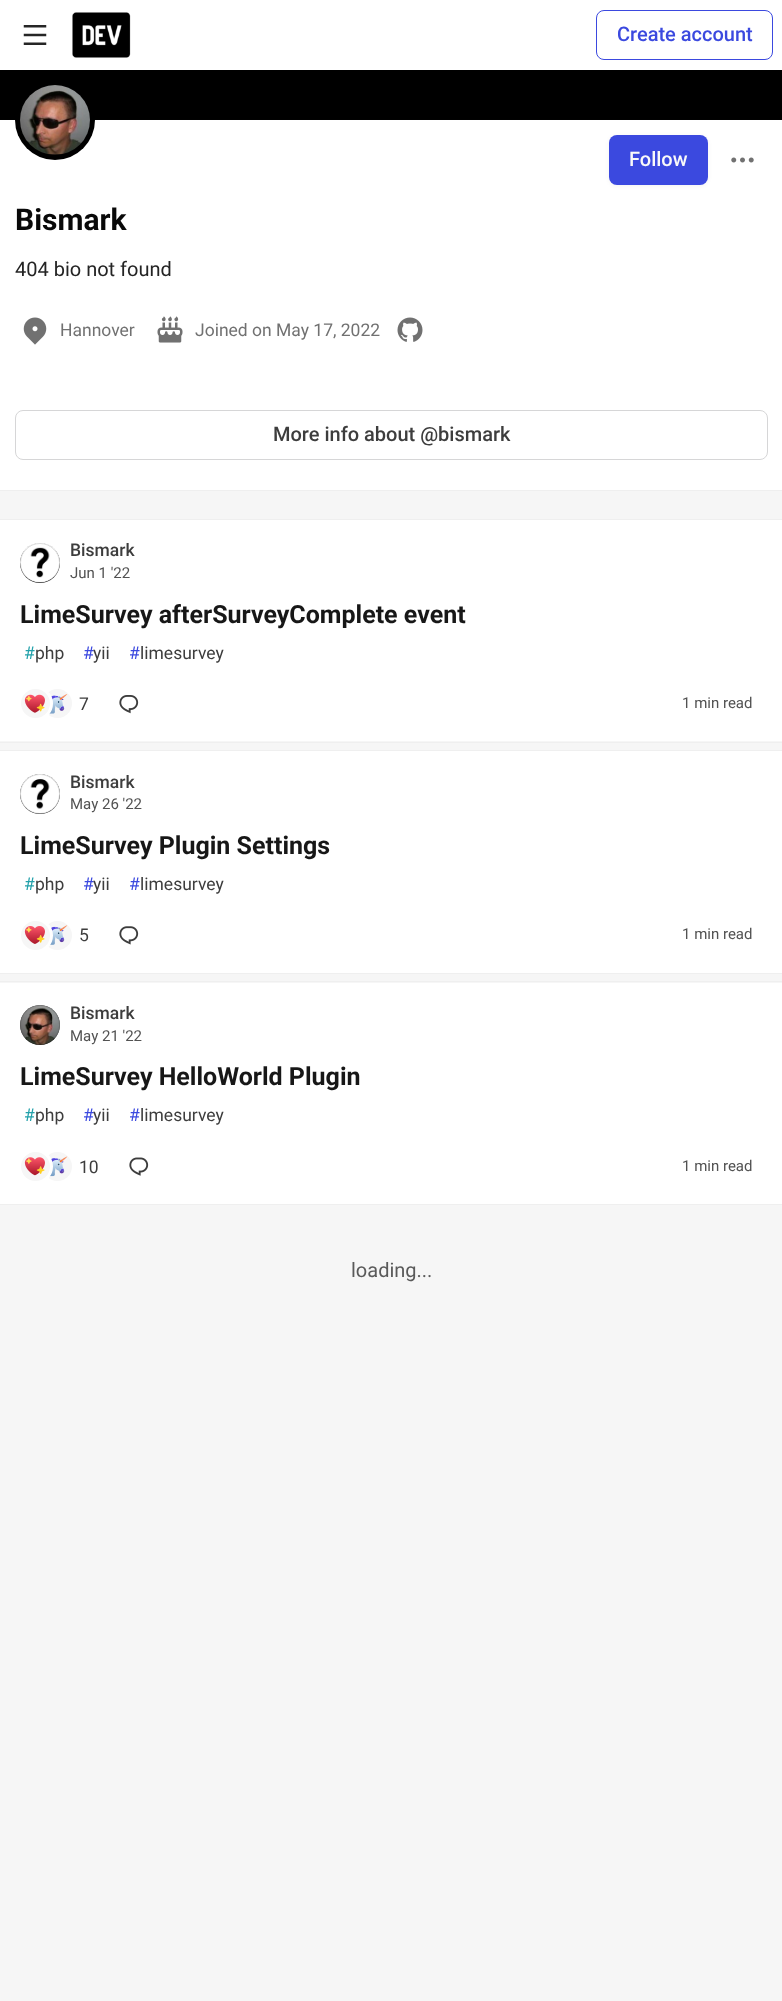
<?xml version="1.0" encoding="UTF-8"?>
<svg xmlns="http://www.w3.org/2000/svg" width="782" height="2001">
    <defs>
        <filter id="blur1" x="-50%" y="-200%" width="200%" height="500%"><feGaussianBlur stdDeviation="2"/></filter>
    </defs>
    <rect width="100%" height="100%" fill="#F6F6F6"/>
    <rect x="0" y="0" width="782" height="70" fill="#FFFFFF"/>
    <image x="23" y="25" width="24" height="20" href="img_01.png"/>
    <image x="72" y="12" width="59" height="46" href="img_02.png"/>
    <rect x="596.5" y="10.5" width="176" height="49" rx="7.5" fill="none" stroke="#3B49DF"/>
    <text x="617" y="41" font-family="Roboto" font-size="20" font-weight="500" fill="#3B49DF">Create account</text>
    <rect x="0" y="70" width="782" height="50" fill="#000000"/>
    <rect x="-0.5" y="119.5" width="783" height="371" fill="none" stroke="#171717" stroke-opacity="0.03"/>
    <rect x="0" y="120" width="782" height="370" fill="#FFFFFF"/>
    <circle cx="55" cy="120" r="40" fill="#000000"/>
    <image x="20" y="85" width="70" height="70" href="img_03.png"/>
    <rect x="609" y="136" width="99" height="50" rx="8" fill="#000000" fill-opacity="0.05" filter="url(#blur1)"/>
    <rect x="609" y="135" width="99" height="50" rx="8" fill="#3B49DF"/>
    <text x="629" y="166" font-family="Roboto" font-size="20" font-weight="500" fill="#F9F9F9">Follow</text>
    <image x="731" y="157" width="23" height="6" href="img_04.png"/>
    <text x="15" y="230" font-family="Roboto" font-size="30" font-weight="700" fill="#090909">Bismark</text>
    <text x="15" y="276" font-family="Roboto" font-size="20" fill="#242424">404 bio not found</text>
    <image x="23" y="317" width="24" height="28" href="img_05.png"/>
    <text x="60" y="336" font-family="Roboto" font-size="17.5" fill="#717171">Hannover</text>
    <image x="157" y="316" width="26" height="27" href="img_06.png"/>
    <text x="195" y="336" font-family="Roboto" font-size="17.5" fill="#717171">Joined on May 17, 2022</text>
    <image x="397" y="317" width="26" height="25" href="img_07.png"/>
    <rect x="15.5" y="410.5" width="752" height="49" rx="7.5" fill="none" stroke="#D6D6D7"/>
    <text x="273" y="441" font-family="Roboto" font-size="20" font-weight="500" fill="#3D3D3D">More info about @bismark</text>
    <rect x="-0.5" y="519.5" width="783" height="223" fill="none" stroke="#EFEFEF"/>
    <rect x="0" y="520" width="782" height="221" fill="#FFFFFF"/>
    <circle cx="40" cy="563" r="20" fill="#525252"/>
    <image x="20" y="543" width="40" height="40" href="img_08.png"/>
    <circle cx="40" cy="563" r="19.5" fill="none" stroke="#171717" stroke-opacity="0.15"/>
    <text x="70" y="556" font-family="Roboto" font-size="17.5" font-weight="500" fill="#3D3D3D">Bismark</text>
    <text x="70" y="578" font-family="Roboto" font-size="15" fill="#525252">Jun 1 '22</text>
    <text x="20" y="623" font-family="Roboto" font-size="25" font-weight="700" fill="#171717">LimeSurvey afterSurveyComplete event</text>
    <text x="24" y="659" font-family="Roboto" font-size="17.5" fill="#23A1AA">#</text>
    <text x="35" y="659" font-family="Roboto" font-size="17.5" fill="#3D3D3D">php</text>
    <text x="83" y="659" font-family="Roboto" font-size="17.5" fill="#3B49DF">#</text>
    <text x="93" y="659" font-family="Roboto" font-size="17.5" fill="#3D3D3D">yii</text>
    <text x="129" y="659" font-family="Roboto" font-size="17.5" fill="#3B49DF">#</text>
    <text x="140" y="659" font-family="Roboto" font-size="17.5" fill="#3D3D3D">limesurvey</text>
    <circle cx="57.5" cy="703.5" r="16" fill="#F6F6F6" stroke="#FFFFFF" stroke-width="3"/>
    <image x="49" y="694" width="19" height="20" href="img_10.png"/>
    <circle cx="35.5" cy="703.5" r="16" fill="#F6F6F6" stroke="#FFFFFF" stroke-width="3"/>
    <image x="24" y="694" width="21" height="19" href="img_09.png"/>
    <text x="79" y="710" font-family="Roboto" font-size="17.5" fill="#3D3D3D">7</text>
    <image x="119" y="695" width="20" height="19" href="img_11.png"/>
    <text x="682" y="708" font-family="Roboto" font-size="15" fill="#525252">1 min read</text>
    <rect x="-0.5" y="750.5" width="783" height="223" fill="none" stroke="#EFEFEF"/>
    <rect x="0" y="751" width="782" height="222" fill="#FFFFFF"/>
    <circle cx="40" cy="794" r="20" fill="#525252"/>
    <image x="20" y="774" width="40" height="40" href="img_12.png"/>
    <circle cx="40" cy="794" r="19.5" fill="none" stroke="#171717" stroke-opacity="0.15"/>
    <text x="70" y="788" font-family="Roboto" font-size="17.5" font-weight="500" fill="#3D3D3D">Bismark</text>
    <text x="70" y="809" font-family="Roboto" font-size="15" fill="#525252">May 26 '22</text>
    <text x="20" y="854" font-family="Roboto" font-size="25" font-weight="700" fill="#171717">LimeSurvey Plugin Settings</text>
    <text x="24" y="890" font-family="Roboto" font-size="17.5" fill="#23A1AA">#</text>
    <text x="35" y="890" font-family="Roboto" font-size="17.5" fill="#3D3D3D">php</text>
    <text x="83" y="890" font-family="Roboto" font-size="17.5" fill="#3B49DF">#</text>
    <text x="93" y="890" font-family="Roboto" font-size="17.5" fill="#3D3D3D">yii</text>
    <text x="129" y="890" font-family="Roboto" font-size="17.5" fill="#3B49DF">#</text>
    <text x="140" y="890" font-family="Roboto" font-size="17.5" fill="#3D3D3D">limesurvey</text>
    <circle cx="57.5" cy="935.5" r="16" fill="#F6F6F6" stroke="#FFFFFF" stroke-width="3"/>
    <image x="50" y="925" width="18" height="20" href="img_14.png"/>
    <circle cx="35.5" cy="935.5" r="16" fill="#F6F6F6" stroke="#FFFFFF" stroke-width="3"/>
    <image x="24" y="926" width="21" height="18" href="img_13.png"/>
    <text x="79" y="941" font-family="Roboto" font-size="17.5" fill="#3D3D3D">5</text>
    <image x="119" y="926" width="20" height="19" href="img_15.png"/>
    <text x="682" y="939" font-family="Roboto" font-size="15" fill="#525252">1 min read</text>
    <rect x="-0.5" y="981.5" width="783" height="223" fill="none" stroke="#EFEFEF"/>
    <rect x="0" y="983" width="782" height="221" fill="#FFFFFF"/>
    <circle cx="40" cy="1025" r="20" fill="#525252"/>
    <image x="20" y="1005" width="40" height="40" href="img_16.png"/>
    <circle cx="40" cy="1025" r="19.5" fill="none" stroke="#171717" stroke-opacity="0.15"/>
    <text x="70" y="1019" font-family="Roboto" font-size="17.5" font-weight="500" fill="#3D3D3D">Bismark</text>
    <text x="70" y="1041" font-family="Roboto" font-size="15" fill="#525252">May 21 '22</text>
    <text x="20" y="1085" font-family="Roboto" font-size="25" font-weight="700" fill="#171717">LimeSurvey HelloWorld Plugin</text>
    <text x="24" y="1121" font-family="Roboto" font-size="17.5" fill="#23A1AA">#</text>
    <text x="35" y="1121" font-family="Roboto" font-size="17.5" fill="#3D3D3D">php</text>
    <text x="83" y="1121" font-family="Roboto" font-size="17.5" fill="#3B49DF">#</text>
    <text x="93" y="1121" font-family="Roboto" font-size="17.5" fill="#3D3D3D">yii</text>
    <text x="129" y="1121" font-family="Roboto" font-size="17.5" fill="#3B49DF">#</text>
    <text x="140" y="1121" font-family="Roboto" font-size="17.5" fill="#3D3D3D">limesurvey</text>
    <circle cx="57.5" cy="1166.5" r="16" fill="#F6F6F6" stroke="#FFFFFF" stroke-width="3"/>
    <image x="49" y="1156" width="19" height="21" href="img_18.png"/>
    <circle cx="35.5" cy="1166.5" r="16" fill="#F6F6F6" stroke="#FFFFFF" stroke-width="3"/>
    <image x="24" y="1157" width="21" height="19" href="img_17.png"/>
    <text x="79" y="1173" font-family="Roboto" font-size="17.5" fill="#3D3D3D">10</text>
    <image x="129" y="1157" width="20" height="19" href="img_19.png"/>
    <text x="682" y="1171" font-family="Roboto" font-size="15" fill="#525252">1 min read</text>
    <text x="351" y="1277" font-family="Roboto" font-size="20" fill="#5A5A5A">loading...</text>
</svg>
